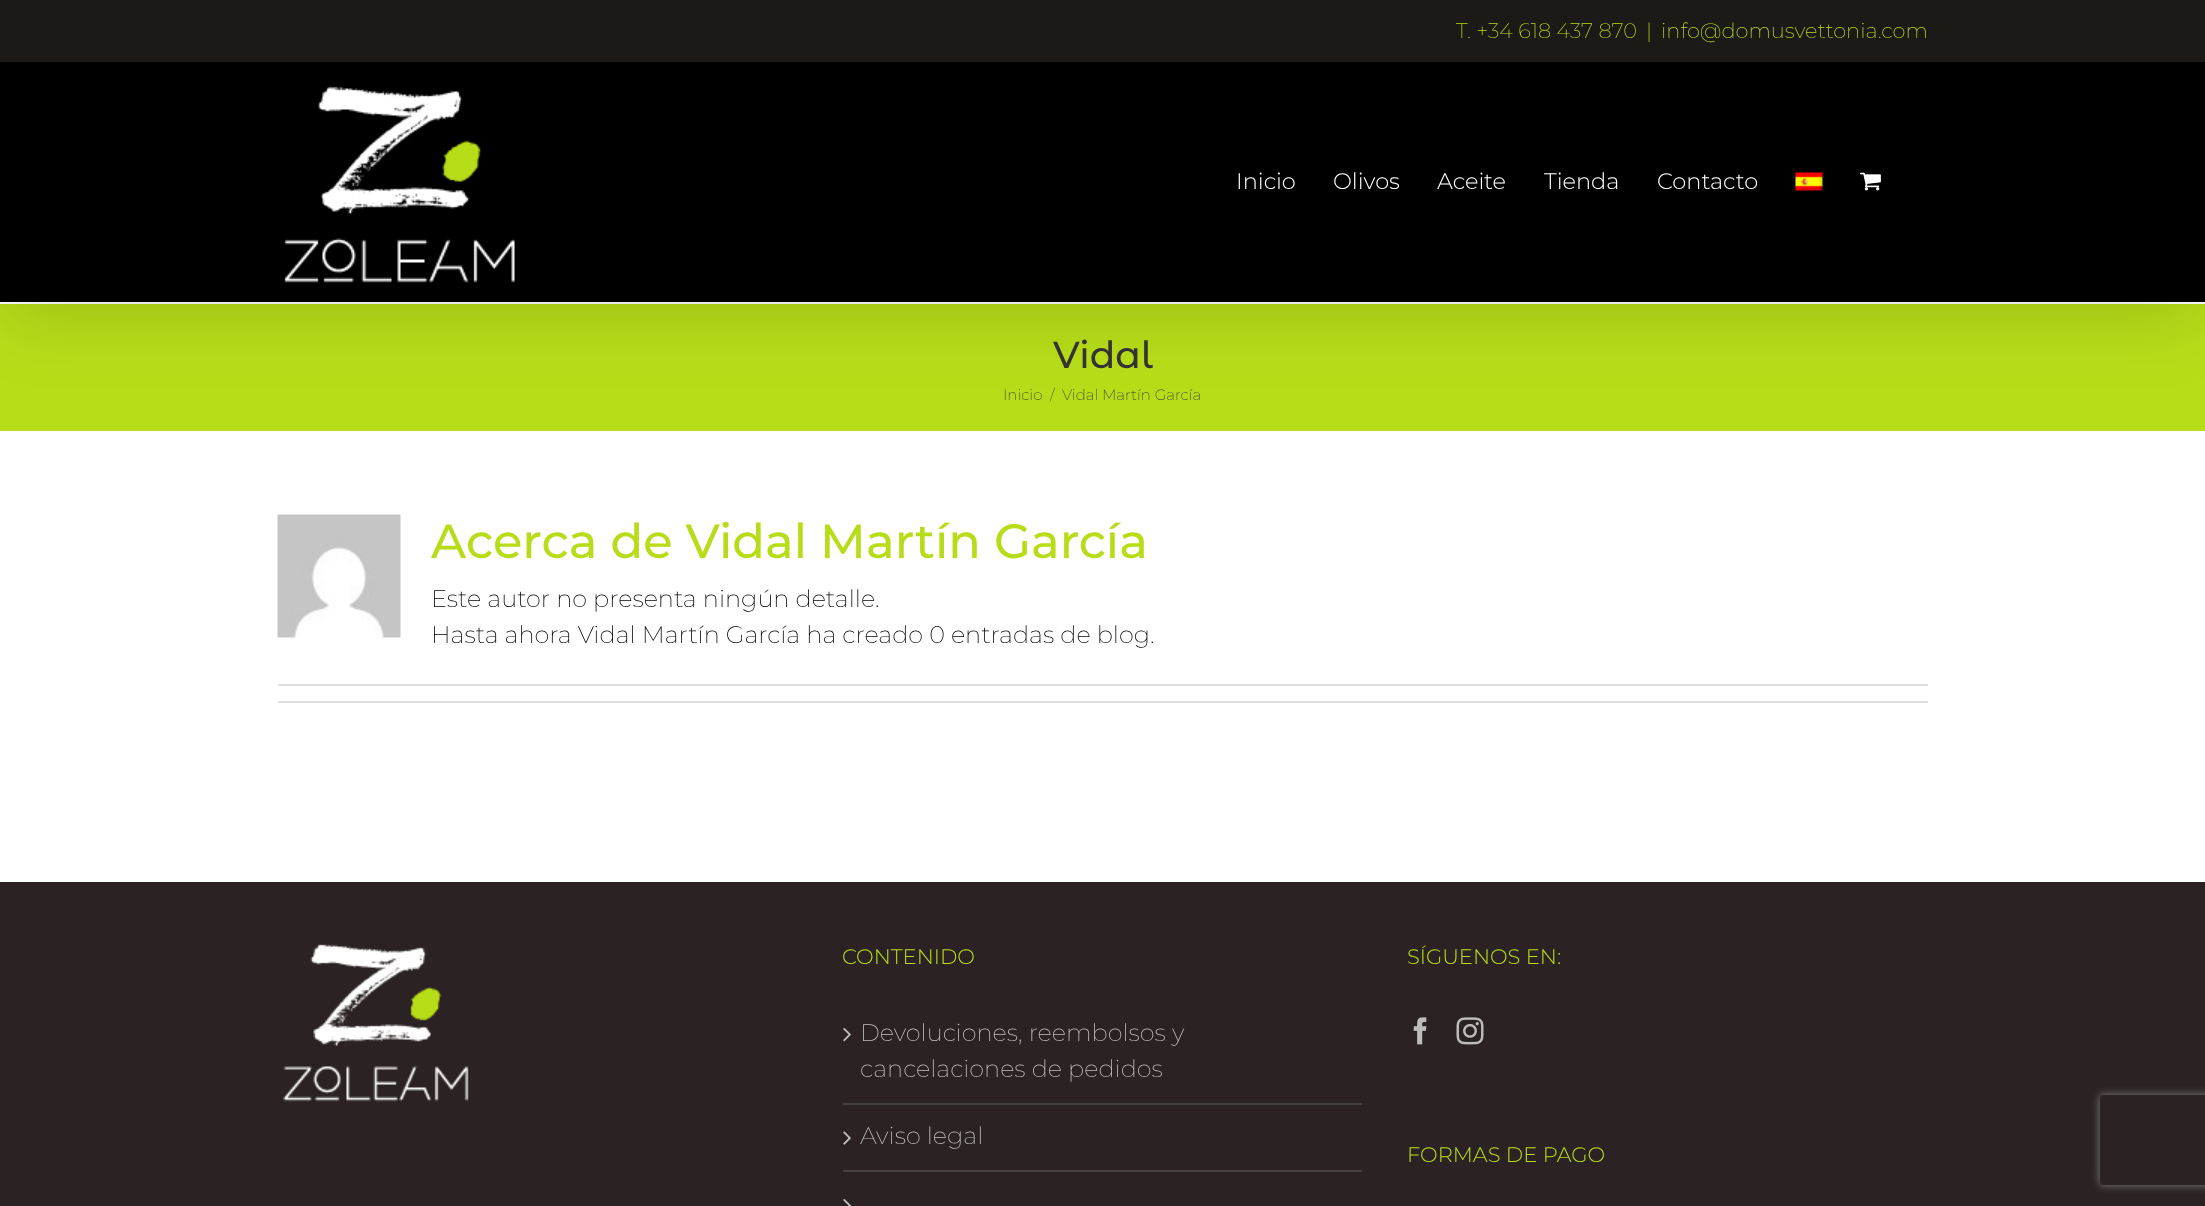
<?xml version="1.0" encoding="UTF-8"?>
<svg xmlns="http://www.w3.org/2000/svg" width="2205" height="1206">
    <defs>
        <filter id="blur1" x="-50%" y="-200%" width="200%" height="500%"><feGaussianBlur stdDeviation="37.5"/></filter>
        <clipPath id="clip1"><path d="M 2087 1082 H 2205 V 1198 H 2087 Z M 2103 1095 H 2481 C 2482.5 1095 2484 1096.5 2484 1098 V 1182 C 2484 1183.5 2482.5 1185 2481 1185 H 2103 C 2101.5 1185 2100 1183.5 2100 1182 V 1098 C 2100 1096.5 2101.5 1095 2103 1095 Z" clip-rule="evenodd"/></clipPath>
        <filter id="blur2" x="-50%" y="-200%" width="200%" height="500%"><feGaussianBlur stdDeviation="4"/></filter>
    </defs>
    <rect width="100%" height="100%" fill="#FFFFFF"/>
    <rect x="0" y="304" width="2205" height="127" fill="#B7DD18"/>
    <rect x="3" y="18" width="2199" height="296" fill="#000000" fill-opacity="0.14" filter="url(#blur1)"/>
    <rect x="0" y="0" width="2205" height="62" fill="#1C1916"/>
    <text x="1456" y="38" font-family="Montserrat" font-size="21" font-weight="200" fill="#B7DD18">T. +34 618 437 870</text>
    <text x="1646" y="38" font-family="Montserrat" font-size="21" font-weight="200" fill="#B7DD18">|</text>
    <text x="1661" y="38" font-family="Montserrat" font-size="21" font-weight="200" fill="#B7DD18">info@domusvettonia.com</text>
    <rect x="0" y="62" width="2205" height="240" fill="#000000"/>
    <image x="284" y="86" width="231" height="197" href="img_01.png"/>
    <text x="1236" y="189" font-family="Montserrat" font-size="22.5" font-weight="300" fill="#FFFFFF">Inicio</text>
    <text x="1333" y="189" font-family="Montserrat" font-size="22.5" font-weight="300" fill="#FFFFFF">Olivos</text>
    <text x="1437" y="189" font-family="Montserrat" font-size="22.5" font-weight="300" fill="#FFFFFF">Aceite</text>
    <text x="1544" y="189" font-family="Montserrat" font-size="22.5" font-weight="300" fill="#FFFFFF">Tienda</text>
    <text x="1657" y="189" font-family="Montserrat" font-size="22.5" font-weight="300" fill="#FFFFFF">Contacto</text>
    <image x="1795" y="172" width="28" height="19" href="img_02.png"/>
    <image x="1860" y="172" width="21" height="19" href="img_03.png"/>
    <text x="1053" y="368" font-family="Montserrat Alternates" font-size="37.5" font-weight="500" fill="#333333">Vidal</text>
    <text x="1003" y="400" font-family="Montserrat" font-size="15" font-weight="200" fill="#333333">Inicio</text>
    <text x="1050" y="400" font-family="Montserrat" font-size="15" font-weight="200" fill="#333333">/</text>
    <text x="1062" y="400" font-family="Montserrat" font-size="15" font-weight="200" fill="#333333">Vidal Martín García</text>
    <image x="277" y="514" width="124" height="124" href="img_04.png"/>
    <text x="431" y="558" font-family="Montserrat" font-size="48" font-weight="500" fill="#B7DD18">Acerca de Vidal Martín García</text>
    <text font-family="Montserrat" font-size="24" font-weight="200" fill="#000000">
        <tspan x="431" y="607">Este autor no presenta ningún detalle.</tspan>
        <tspan x="431" y="643">Hasta ahora Vidal Martín García ha creado 0 entradas de blog.</tspan>
    </text>
    <rect x="278" y="684" width="1650" height="2" fill="#E0DEDE"/>
    <rect x="278" y="701" width="1650" height="2" fill="#E0DEDE"/>
    <rect x="0" y="882" width="2205" height="324" fill="#2B2323"/>
    <image x="283" y="944" width="186" height="158" href="img_05.png"/>
    <text x="842" y="964" font-family="Montserrat" font-size="21" font-weight="300" fill="#B7DD18">CONTENIDO</text>
    <rect x="843" y="1103" width="519" height="2" fill="#424040"/>
    <image x="843" y="1028" width="8" height="14" href="img_06.png"/>
    <text font-family="Montserrat" font-size="24" font-weight="200" fill="#BFBFBF">
        <tspan x="860" y="1041">Devoluciones, reembolsos y</tspan>
        <tspan x="860" y="1077">cancelaciones de pedidos</tspan>
    </text>
    <rect x="843" y="1170" width="519" height="2" fill="#424040"/>
    <image x="843" y="1131" width="8" height="14" href="img_07.png"/>
    <text x="860" y="1144" font-family="Montserrat" font-size="24" font-weight="200" fill="#BFBFBF">Aviso legal</text>
    <image x="843" y="1199" width="8" height="7" href="img_08.png"/>
    <text x="1407" y="964" font-family="Montserrat" font-size="21" font-weight="300" fill="#B7DD18">SÍGUENOS EN:</text>
    <image x="1413" y="1017" width="14" height="28" href="img_09.png"/>
    <image x="1456" y="1017" width="28" height="28" href="img_10.png"/>
    <text x="1407" y="1162" font-family="Montserrat" font-size="21" font-weight="300" fill="#B7DD18">FORMAS DE PAGO</text>
    <g clip-path="url(#clip1)">
        <rect x="2100" y="1095" width="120" height="90" rx="3" fill="#808080" filter="url(#blur2)"/>
    </g>
</svg>
